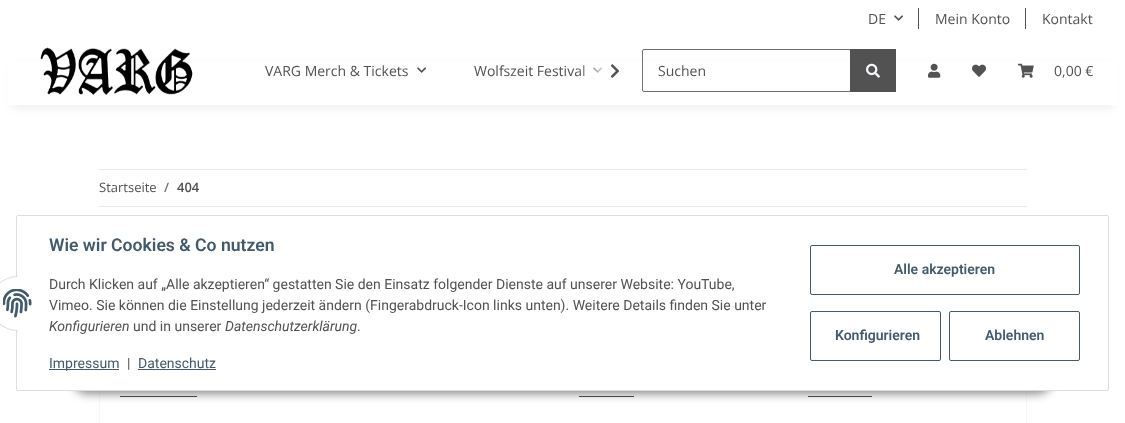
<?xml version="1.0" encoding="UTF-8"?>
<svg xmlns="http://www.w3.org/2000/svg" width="1125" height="423">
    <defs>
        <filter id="blur1" x="-50%" y="-200%" width="200%" height="500%"><feGaussianBlur stdDeviation="4.5"/></filter>
        <linearGradient id="g1" gradientUnits="userSpaceOnUse" x1="578" y1="71" x2="626" y2="71"><stop offset="0" stop-color="#FFFFFF" stop-opacity="0.01"/><stop offset="0.7" stop-color="#FFFFFF"/></linearGradient>
        <filter id="blur2" x="-50%" y="-200%" width="200%" height="500%"><feGaussianBlur stdDeviation="5"/></filter>
    </defs>
    <rect width="100%" height="100%" fill="#FFFFFF"/>
    <text x="868" y="24" font-family="Open Sans" font-size="14" fill="#525252">DE</text>
    <image x="894" y="15" width="9" height="6" href="img_01.png"/>
    <rect x="918" y="8" width="1" height="21" fill="#525252"/>
    <text x="935" y="24" font-family="Open Sans" font-size="14" fill="#525252">Mein Konto</text>
    <rect x="1025" y="8" width="1" height="21" fill="#525252"/>
    <text x="1042" y="24" font-family="Open Sans" font-size="14" fill="#525252">Kontakt</text>
    <rect x="12" y="65" width="1101" height="44" fill="#000000" fill-opacity="0.06" filter="url(#blur1)"/>
    <rect x="8" y="61" width="1109" height="44" fill="#FFFFFF"/>
    <image x="40" y="47" width="153" height="48" href="img_02.png"/>
    <text x="265" y="76" font-family="Open Sans" font-size="14" fill="#525252">VARG Merch &amp; Tickets</text>
    <image x="417" y="67" width="9" height="6" href="img_01.png"/>
    <text x="474" y="76" font-family="Open Sans" font-size="14" fill="#525252">Wolfszeit Festival</text>
    <image x="593" y="67" width="9" height="6" href="img_01.png"/>
    <rect x="578" y="65" width="24" height="11" fill="url(#g1)"/>
    <image x="610" y="64" width="10" height="14" href="img_03.png"/>
    <rect x="642.5" y="49.5" width="208" height="42" rx="1.5" fill="none" stroke="#707070"/>
    <text x="658" y="76" font-family="Open Sans" font-size="14" fill="#525252">Suchen</text>
    <rect x="850" y="49" width="46" height="43" fill="#525252"/>
    <image x="866" y="63" width="14" height="15" href="img_04.png"/>
    <image x="928" y="63" width="13" height="15" href="img_05.png"/>
    <image x="972" y="64" width="14" height="13" href="img_06.png"/>
    <image x="1018" y="63" width="16" height="15" href="img_07.png"/>
    <text x="1054" y="76" font-family="Open Sans" font-size="14" fill="#525252">0,00 €</text>
    <rect x="99" y="169" width="928" height="1" fill="#EBEBEB"/>
    <rect x="99" y="206" width="928" height="1" fill="#EBEBEB"/>
    <text x="99" y="192" font-family="Open Sans" font-size="13" fill="#525252">Startseite</text>
    <text x="164" y="192" font-family="Open Sans" font-size="13" font-weight="600" fill="#707070">/</text>
    <text x="177" y="192" font-family="Open Sans" font-size="13" font-weight="600" fill="#525252">404</text>
    <rect x="99.5" y="302.5" width="927" height="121" fill="none" stroke="#F5F7FA"/>
    <rect x="120" y="396" width="77" height="1" fill="#525252"/>
    <rect x="579" y="396" width="55" height="1" fill="#525252"/>
    <rect x="808" y="396" width="64" height="1" fill="#525252"/>
    <rect x="72" y="362" width="981" height="32" rx="16" fill="#000000" fill-opacity="0.45" filter="url(#blur2)"/>
    <rect x="16.5" y="215.5" width="1092" height="175" rx="1.5" fill="#FFFFFF" stroke="#DDDDDD"/>
    <circle cx="17.5" cy="303.5" r="27" fill="#FFFFFF" stroke="#DDDDDD"/>
    <rect x="18" y="276" width="27" height="55" fill="#FFFFFF"/>
    <image x="3" y="289" width="29" height="29" href="img_08.png"/>
    <text x="49" y="251" font-family="Roboto" font-size="17.6" font-weight="600" fill="#435A6B">Wie wir Cookies &amp; Co nutzen</text>
    <text font-family="Roboto" font-size="14" fill="#525252">
        <tspan x="49" y="289">Durch Klicken auf „Alle akzeptieren“ gestatten Sie den Einsatz folgender Dienste auf unserer Website: YouTube,</tspan>
        <tspan x="49" y="310">Vimeo. Sie können die Einstellung jederzeit ändern (Fingerabdruck-Icon links unten). Weitere Details finden Sie unter</tspan>
    </text>
    <text x="49" y="331" font-family="Roboto" font-size="14" font-style="italic" fill="#525252">Konfigurieren</text>
    <text x="133" y="331" font-family="Roboto" font-size="14" fill="#525252">und in unserer</text>
    <text x="225" y="331" font-family="Roboto" font-size="14" font-style="italic" fill="#525252">Datenschutzerklärung</text>
    <text x="357" y="331" font-family="Roboto" font-size="14" fill="#525252">.</text>
    <rect x="49" y="369" width="70" height="1" fill="#435A6B"/>
    <text x="49" y="368" font-family="Roboto" font-size="14" fill="#435A6B">Impressum</text>
    <text x="127" y="368" font-family="Roboto" font-size="14" fill="#525252">|</text>
    <text x="138" y="368" font-family="Roboto" font-size="14" fill="#435A6B">Datenschutz</text>
    <rect x="138" y="369" width="78" height="1" fill="#435A6B"/>
    <rect x="810.5" y="245.5" width="269" height="49" rx="1.5" fill="none" stroke="#435A6B"/>
    <text x="894" y="274" font-family="Roboto" font-size="14" font-weight="600" fill="#435A6B">Alle akzeptieren</text>
    <rect x="810.5" y="311.5" width="130" height="49" rx="1.5" fill="none" stroke="#435A6B"/>
    <text x="835" y="340" font-family="Roboto" font-size="14" font-weight="600" fill="#435A6B">Konfigurieren</text>
    <rect x="949.5" y="311.5" width="130" height="49" rx="1.5" fill="none" stroke="#435A6B"/>
    <text x="985" y="340" font-family="Roboto" font-size="14" font-weight="600" fill="#435A6B">Ablehnen</text>
</svg>
